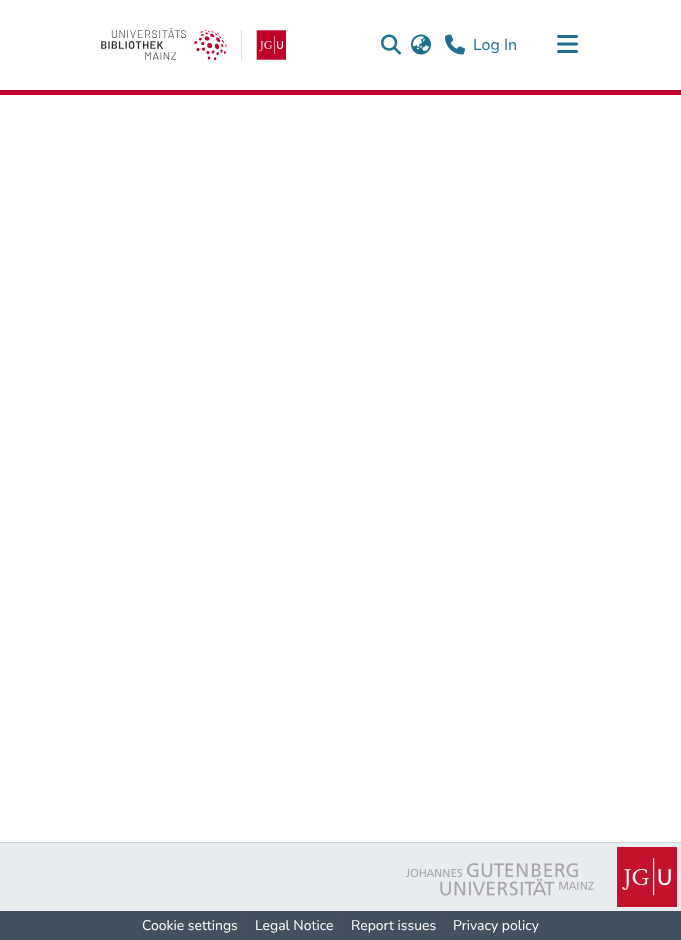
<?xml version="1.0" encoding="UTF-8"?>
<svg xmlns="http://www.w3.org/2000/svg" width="681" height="940">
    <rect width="100%" height="100%" fill="#FFFFFF"/>
    <rect x="0" y="90" width="681" height="5" fill="#C1002A"/>
    <image x="101" y="28" width="185" height="33" href="img_01.png"/>
    <image x="381" y="34" width="20" height="21" href="img_02.png"/>
    <image x="411" y="34" width="20" height="21" href="img_03.png"/>
    <image x="445" y="34" width="20" height="21" href="img_04.png"/>
    <text x="473" y="50" font-family="Nunito" font-size="16" font-weight="200" fill="#1E6F90">Log In</text>
    <image x="557" y="35" width="21" height="18" href="img_05.png"/>
    <rect x="0" y="911" width="681" height="29" fill="#43515F"/>
    <rect x="0" y="842" width="681" height="1" fill="#CED4DA"/>
    <rect x="0" y="843" width="681" height="68" fill="#E9ECEF"/>
    <image x="406" y="847" width="271" height="60" href="img_06.png"/>
    <text x="142" y="930" font-family="Nunito" font-size="14" font-weight="200" fill="#FFFFFF">Cookie settings</text>
    <rect x="246" y="915" width="1" height="21" fill="#495057"/>
    <text x="255" y="930" font-family="Nunito" font-size="14" font-weight="200" fill="#FFFFFF">Legal Notice</text>
    <rect x="342" y="915" width="1" height="21" fill="#495057"/>
    <text x="351" y="930" font-family="Nunito" font-size="14" font-weight="200" fill="#FFFFFF">Report issues</text>
    <rect x="444" y="915" width="1" height="21" fill="#495057"/>
    <text x="453" y="930" font-family="Nunito" font-size="14" font-weight="200" fill="#FFFFFF">Privacy policy</text>
</svg>
